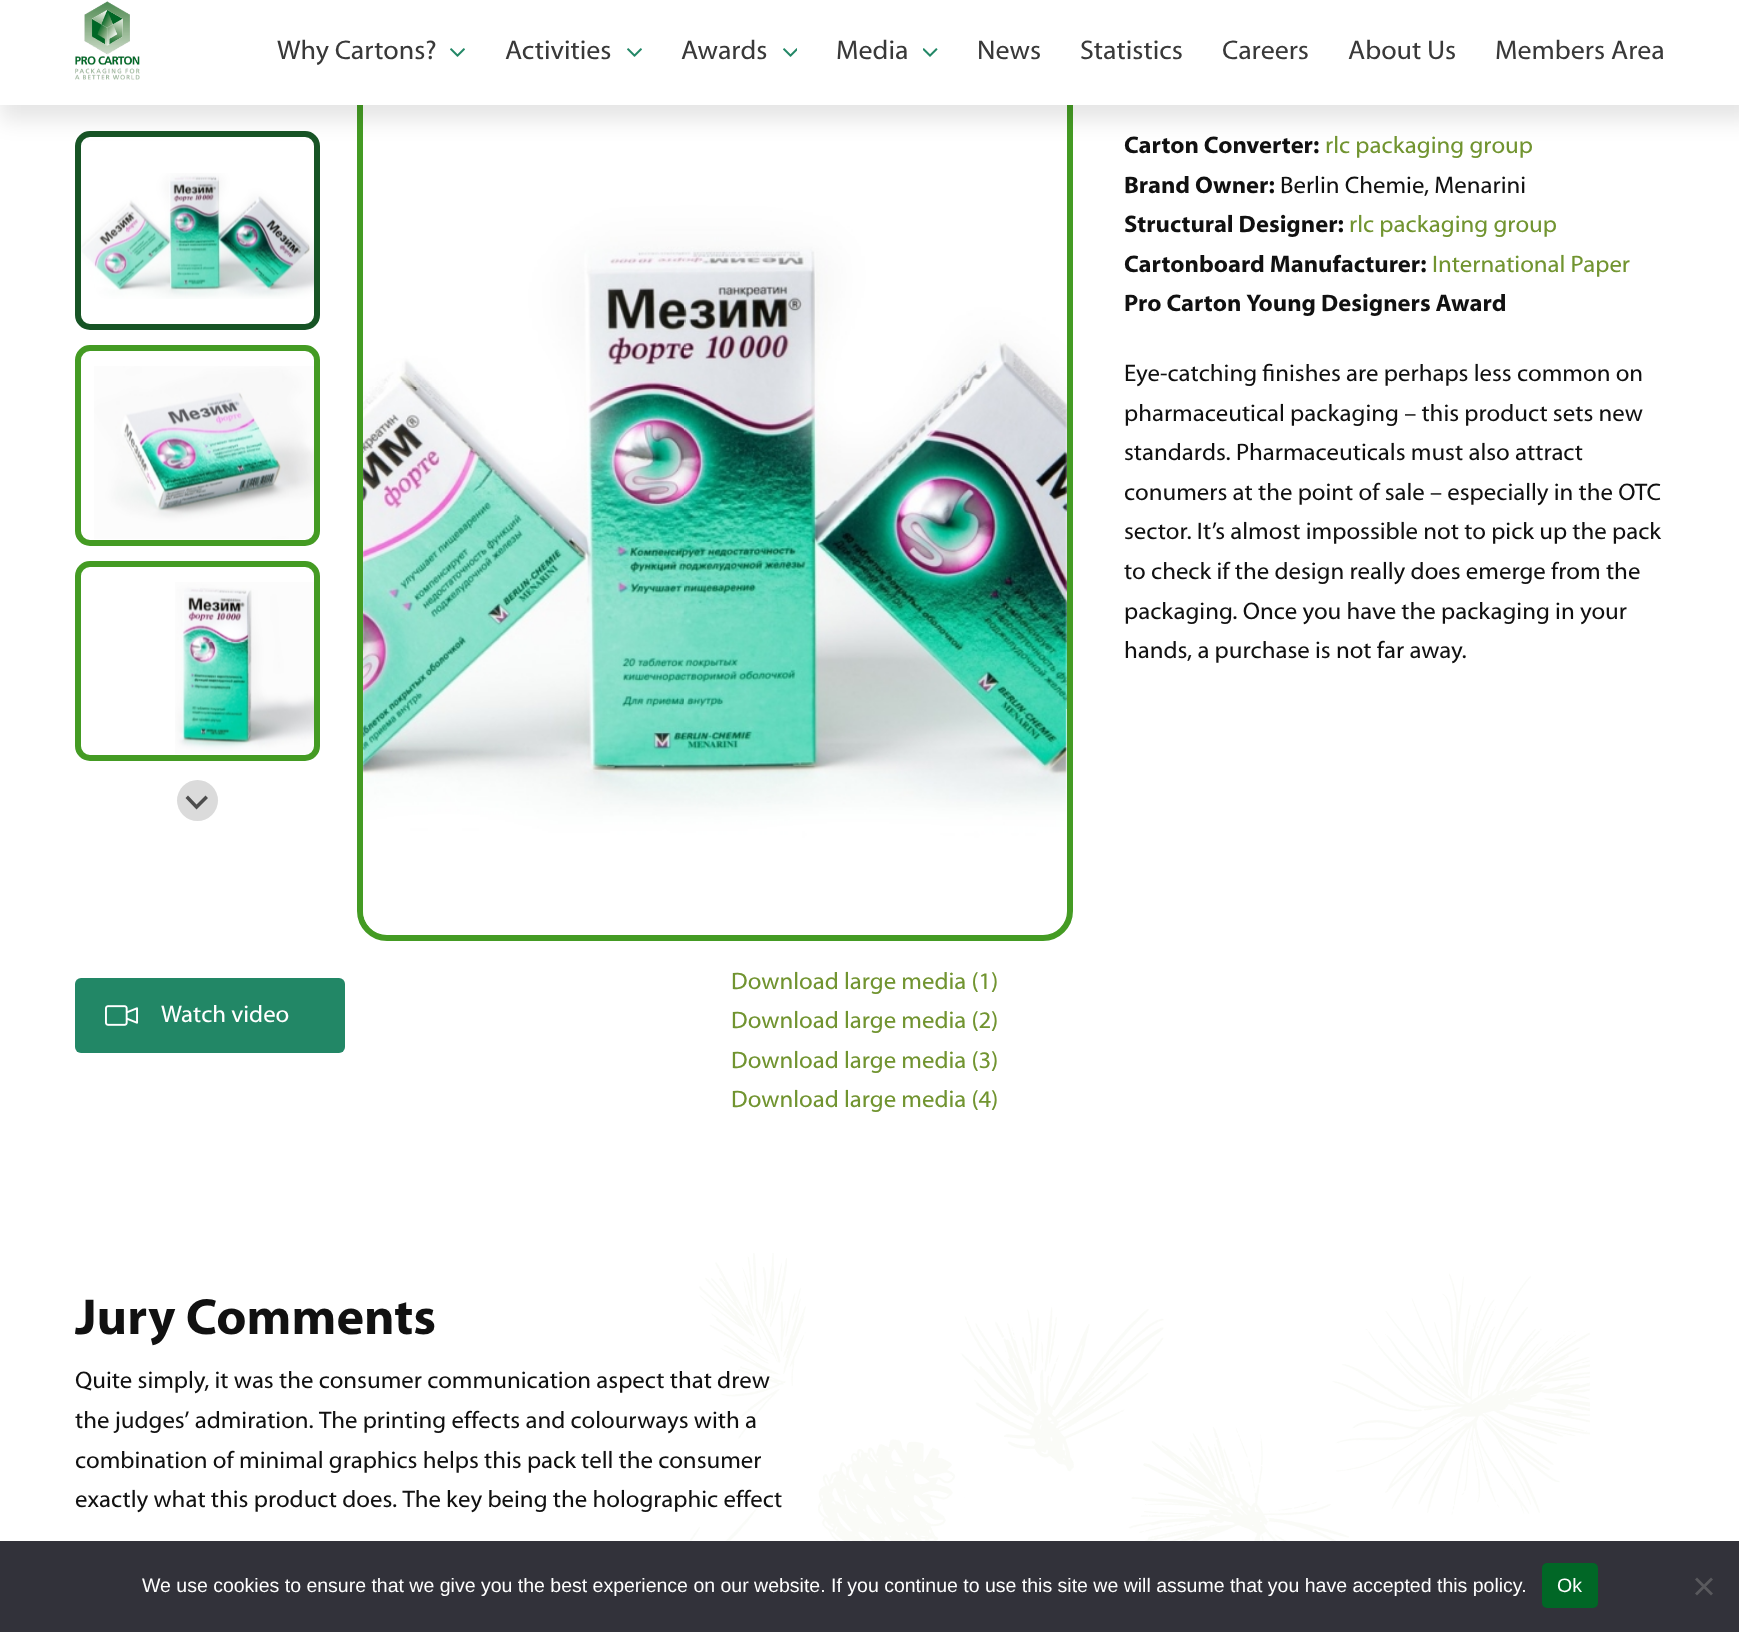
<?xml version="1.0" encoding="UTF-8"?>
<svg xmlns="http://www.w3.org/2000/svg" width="1739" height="1632">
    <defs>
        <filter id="blur1" x="-50%" y="-200%" width="200%" height="500%"><feGaussianBlur stdDeviation="11"/></filter>
    </defs>
    <rect width="100%" height="100%" fill="#FFFFFF"/>
    <image x="81" y="173" width="233" height="126" href="img_06.png"/>
    <rect x="78" y="134" width="239" height="193" rx="12" fill="none" stroke="#175425" stroke-width="6"/>
    <rect x="360" y="62" width="710" height="876" rx="27" fill="none" stroke="#449B23" stroke-width="6"/>
    <image x="363" y="105" width="704" height="830" href="img_09.png"/>
    <rect x="0" y="0" width="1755" height="120" fill="#000000" fill-opacity="0.1" filter="url(#blur1)"/>
    <rect x="0" y="0" width="1739" height="105" fill="#FFFFFF"/>
    <image x="75" y="1" width="65" height="79" href="img_01.png"/>
    <text x="277" y="59" font-family="Myriad" font-size="27" fill="#393939">Why Cartons?</text>
    <image x="450" y="48" width="15" height="9" href="img_02.png"/>
    <text x="505" y="59" font-family="Myriad" font-size="27" fill="#393939">Activities</text>
    <image x="627" y="48" width="15" height="9" href="img_02.png"/>
    <text x="681" y="59" font-family="Myriad" font-size="27" fill="#393939">Awards</text>
    <image x="783" y="48" width="14" height="9" href="img_03.png"/>
    <text x="836" y="59" font-family="Myriad" font-size="27" fill="#393939">Media</text>
    <image x="923" y="48" width="15" height="9" href="img_04.png"/>
    <text x="977" y="59" font-family="Myriad" font-size="27" fill="#393939">News</text>
    <text x="1080" y="59" font-family="Myriad" font-size="27" fill="#393939">Statistics</text>
    <text x="1222" y="59" font-family="Myriad" font-size="27" fill="#393939">Careers</text>
    <text x="1348" y="59" font-family="Myriad" font-size="27" fill="#393939">About Us</text>
    <text x="1495" y="59" font-family="Myriad" font-size="27" fill="#393939">Members Area</text>
    <image x="690" y="1253" width="900" height="288" href="img_05.png"/>
    <text x="1124" y="153" font-family="Myriad" font-size="24" font-weight="700" fill="#111111">Carton Converter:</text>
    <text x="1325" y="153" font-family="Myriad" font-size="24" fill="#719430">rlc packaging group</text>
    <text x="1124" y="193" font-family="Myriad" font-size="24" font-weight="700" fill="#111111">Brand Owner:</text>
    <text x="1280" y="193" font-family="Myriad" font-size="24" fill="#111111">Berlin Chemie, Menarini</text>
    <text x="1124" y="232" font-family="Myriad" font-size="24" font-weight="700" fill="#111111">Structural Designer:</text>
    <text x="1349" y="232" font-family="Myriad" font-size="24" fill="#719430">rlc packaging group</text>
    <text x="1124" y="272" font-family="Myriad" font-size="24" font-weight="700" fill="#111111">Cartonboard Manufacturer:</text>
    <text x="1432" y="272" font-family="Myriad" font-size="24" fill="#719430">International Paper</text>
    <text x="1124" y="311" font-family="Myriad" font-size="24" font-weight="700" fill="#111111">Pro Carton Young Designers Award</text>
    <text font-family="Myriad" font-size="24" fill="#111111">
        <tspan x="1124" y="381">Eye-catching finishes are perhaps less common on</tspan>
        <tspan x="1124" y="421">pharmaceutical packaging – this product sets new</tspan>
        <tspan x="1124" y="460">standards. Pharmaceuticals must also attract</tspan>
        <tspan x="1124" y="500">conumers at the point of sale – especially in the OTC</tspan>
        <tspan x="1124" y="539">sector. It’s almost impossible not to pick up the pack</tspan>
        <tspan x="1124" y="579">to check if the design really does emerge from the</tspan>
        <tspan x="1124" y="619">packaging. Once you have the packaging in your</tspan>
        <tspan x="1124" y="658">hands, a purchase is not far away.</tspan>
    </text>
    <image x="94" y="366" width="225" height="173" href="img_07.png"/>
    <rect x="78" y="348" width="239" height="195" rx="12" fill="none" stroke="#449B23" stroke-width="6"/>
    <image x="175" y="582" width="145" height="172" href="img_08.png"/>
    <rect x="78" y="564" width="239" height="194" rx="12" fill="none" stroke="#449B23" stroke-width="6"/>
    <circle cx="197.5" cy="800.5" r="20.5" fill="#DBDBDB"/>
    <path d="M 208 798 L 205.5 795.5 L 196.5 804.5 L 188 795.5 L 185.5 798 L 196.5 809.5 Z" fill="#4D4D4D"/>
    <rect x="75" y="978" width="270" height="75" rx="6" fill="#228766"/>
    <image x="105" y="1005" width="33" height="21" href="img_10.png"/>
    <text x="161" y="1022" font-family="Myriad" font-size="24" fill="#FFFFFF">Watch video</text>
    <text font-family="Myriad" font-size="24" fill="#719430">
        <tspan x="731" y="989">Download large media (1)</tspan>
        <tspan x="731" y="1028">Download large media (2)</tspan>
        <tspan x="731" y="1068">Download large media (3)</tspan>
        <tspan x="731" y="1107">Download large media (4)</tspan>
    </text>
    <text x="75" y="1334" font-family="Myriad" font-size="51" font-weight="700" fill="#111111">Jury Comments</text>
    <text font-family="Myriad" font-size="24" fill="#111111">
        <tspan x="75" y="1388">Quite simply, it was the consumer communication aspect that drew</tspan>
        <tspan x="75" y="1428">the judges’ admiration. The printing effects and colourways with a</tspan>
        <tspan x="75" y="1468">combination of minimal graphics helps this pack tell the consumer</tspan>
        <tspan x="75" y="1507">exactly what this product does. The key being the holographic effect</tspan>
    </text>
    <rect x="0" y="1541" width="1739" height="91" fill="#32323A"/>
    <text x="142" y="1592" font-family="Liberation Sans" font-size="19.5" fill="#FFFFFF">We use cookies to ensure that we give you the best experience on our website. If you continue to use this site we will assume that you have accepted this policy.</text>
    <rect x="1542" y="1563" width="56" height="45" rx="5" fill="#016726"/>
    <text x="1557" y="1592" font-family="Liberation Sans" font-size="19.5" fill="#FFFFFF">Ok</text>
    <path d="M 1711 1577.5 L 1713 1579.5 L 1697 1595.5 L 1695 1593.5 Z" fill="#59595D"/>
    <path d="M 1695 1579.5 L 1697 1577.5 L 1713 1593.5 L 1711 1595.5 Z" fill="#59595D"/>
</svg>
